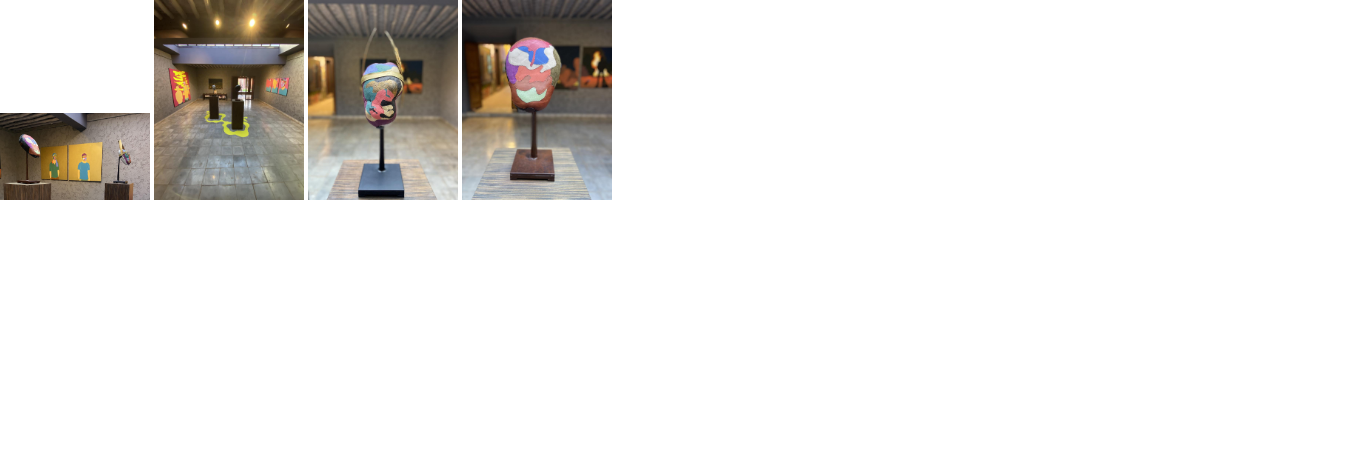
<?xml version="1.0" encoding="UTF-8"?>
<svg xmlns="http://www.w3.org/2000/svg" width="1369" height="450">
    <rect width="100%" height="100%" fill="#FFFFFF"/>
    <image x="0" y="113" width="150" height="87" href="img_01.png"/>
    <image x="154" y="0" width="150" height="200" href="img_02.png"/>
    <image x="308" y="0" width="150" height="200" href="img_03.png"/>
    <image x="462" y="0" width="150" height="200" href="img_04.png"/>
</svg>
